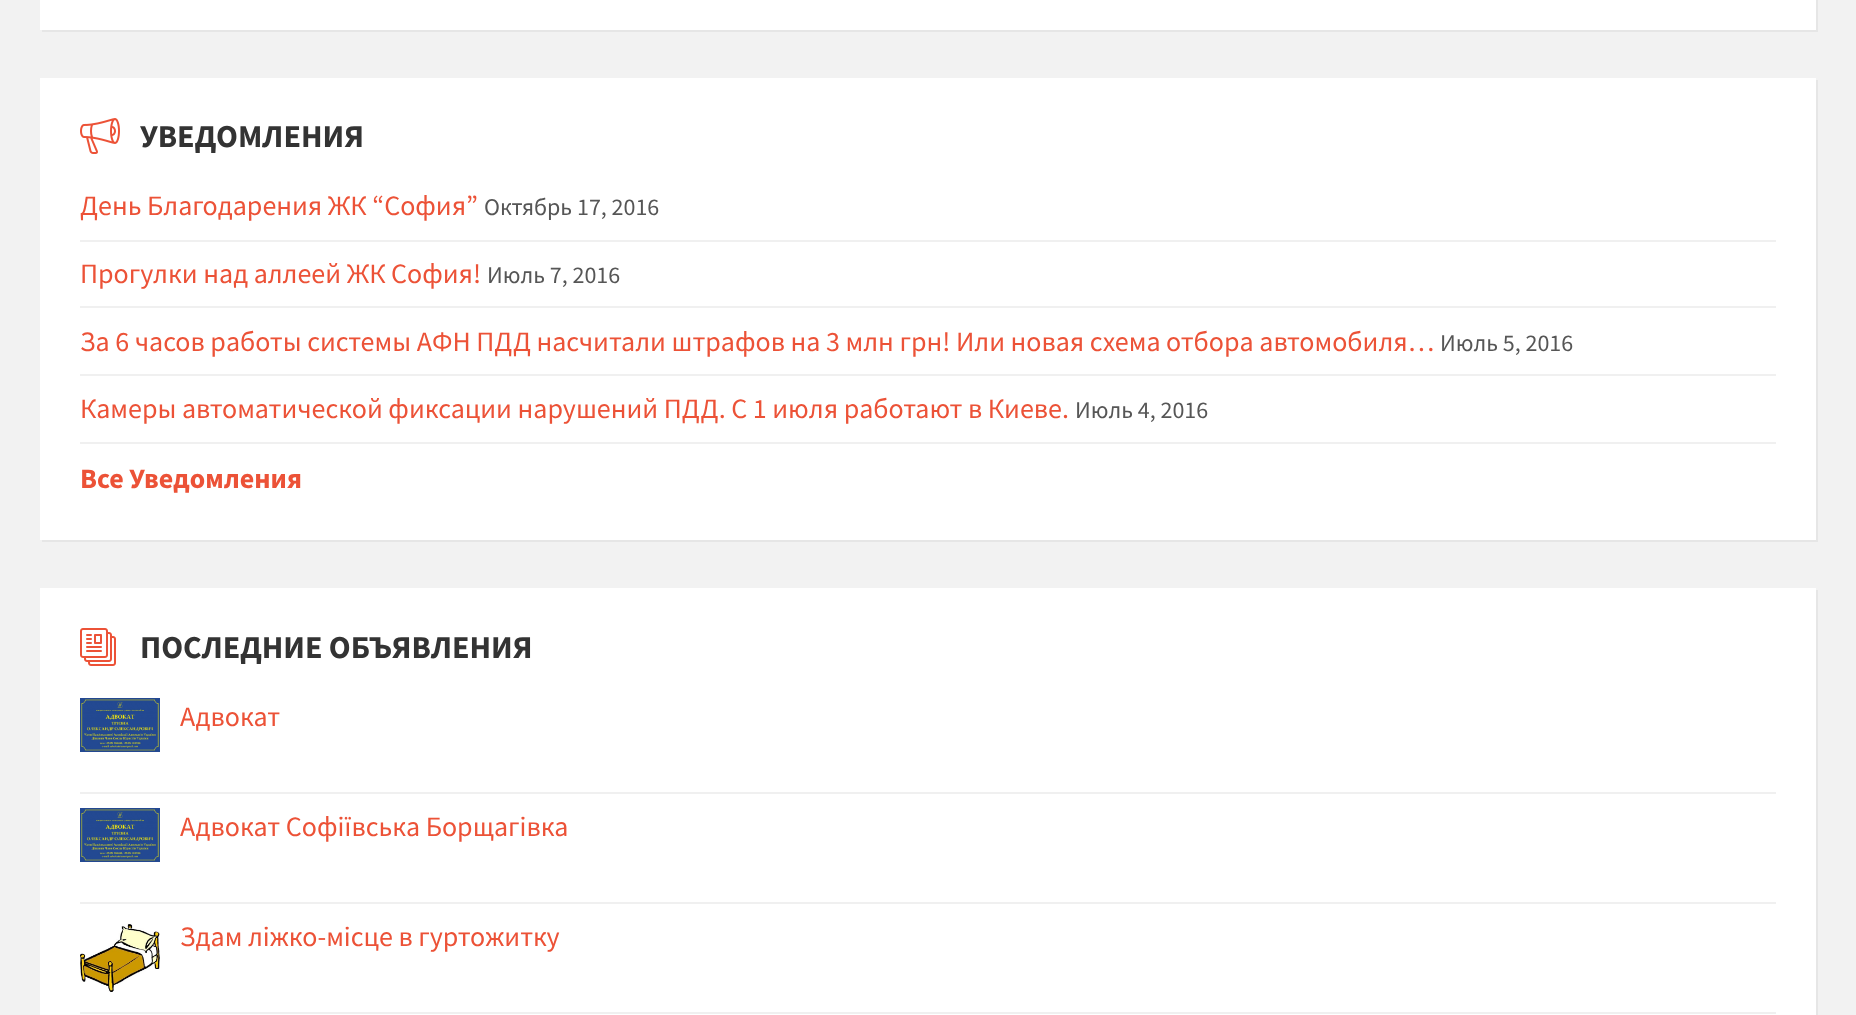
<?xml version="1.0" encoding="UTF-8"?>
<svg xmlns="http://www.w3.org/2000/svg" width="1856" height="1015">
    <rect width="100%" height="100%" fill="#F2F2F2"/>
    <path d="M 42 30 V 32 H 1818 V -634 H 1816 V 30 Z" fill="#E6E6E6"/>
    <rect x="40" y="0" width="1776" height="30" fill="#FFFFFF"/>
    <path d="M 42 540 V 542 H 1818 V 80 H 1816 V 540 Z" fill="#E6E6E6"/>
    <rect x="40" y="78" width="1776" height="462" fill="#FFFFFF"/>
    <image x="80" y="118" width="40" height="36" href="img_01.png"/>
    <text x="140" y="147" font-family="Source Sans Pro" font-size="32" font-weight="700" fill="#333333">УВЕДОМЛЕНИЯ</text>
    <text x="80" y="215" font-family="Source Sans Pro" font-size="28" fill="#EC5237">День Благодарения ЖК “София”</text>
    <text x="484" y="215" font-family="Source Sans Pro" font-size="24" fill="#565656">Октябрь 17, 2016</text>
    <rect x="80" y="240" width="1696" height="2" fill="#F0F0F0"/>
    <text x="80" y="283" font-family="Source Sans Pro" font-size="28" fill="#EC5237">Прогулки над аллеей ЖК София!</text>
    <text x="487" y="283" font-family="Source Sans Pro" font-size="24" fill="#565656">Июль 7, 2016</text>
    <rect x="80" y="306" width="1696" height="2" fill="#F0F0F0"/>
    <text x="80" y="351" font-family="Source Sans Pro" font-size="28" fill="#EC5237">За 6 часов работы системы АФН ПДД насчитали штрафов на 3 млн грн! Или новая схема отбора автомобиля…</text>
    <text x="1440" y="351" font-family="Source Sans Pro" font-size="24" fill="#565656">Июль 5, 2016</text>
    <rect x="80" y="374" width="1696" height="2" fill="#F0F0F0"/>
    <text x="80" y="418" font-family="Source Sans Pro" font-size="28" fill="#EC5237">Камеры автоматической фиксации нарушений ПДД. С 1 июля работают в Киеве.</text>
    <text x="1075" y="418" font-family="Source Sans Pro" font-size="24" fill="#565656">Июль 4, 2016</text>
    <rect x="80" y="442" width="1696" height="2" fill="#F0F0F0"/>
    <text x="80" y="488" font-family="Source Sans Pro" font-size="28" font-weight="700" fill="#EC5237">Все Уведомления</text>
    <path d="M 42 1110 V 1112 H 1818 V 590 H 1816 V 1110 Z" fill="#E6E6E6"/>
    <rect x="40" y="588" width="1776" height="427" fill="#FFFFFF"/>
    <image x="80" y="628" width="36" height="38" href="img_02.png"/>
    <text x="140" y="658" font-family="Source Sans Pro" font-size="32" font-weight="700" fill="#333333">ПОСЛЕДНИЕ ОБЪЯВЛЕНИЯ</text>
    <image x="80" y="698" width="80" height="54" href="img_03.png"/>
    <text x="180" y="726" font-family="Source Sans Pro" font-size="28" fill="#EC5237">Адвокат</text>
    <rect x="80" y="792" width="1696" height="2" fill="#F0F0F0"/>
    <image x="80" y="808" width="80" height="54" href="img_04.png"/>
    <text x="180" y="836" font-family="Source Sans Pro" font-size="28" fill="#EC5237">Адвокат Софіївська Борщагівка</text>
    <rect x="80" y="902" width="1696" height="2" fill="#F0F0F0"/>
    <image x="80" y="923" width="80" height="69" href="img_05.png"/>
    <text x="180" y="946" font-family="Source Sans Pro" font-size="28" fill="#EC5237">Здам ліжко-місце в гуртожитку</text>
    <rect x="80" y="1012" width="1696" height="2" fill="#F0F0F0"/>
</svg>
